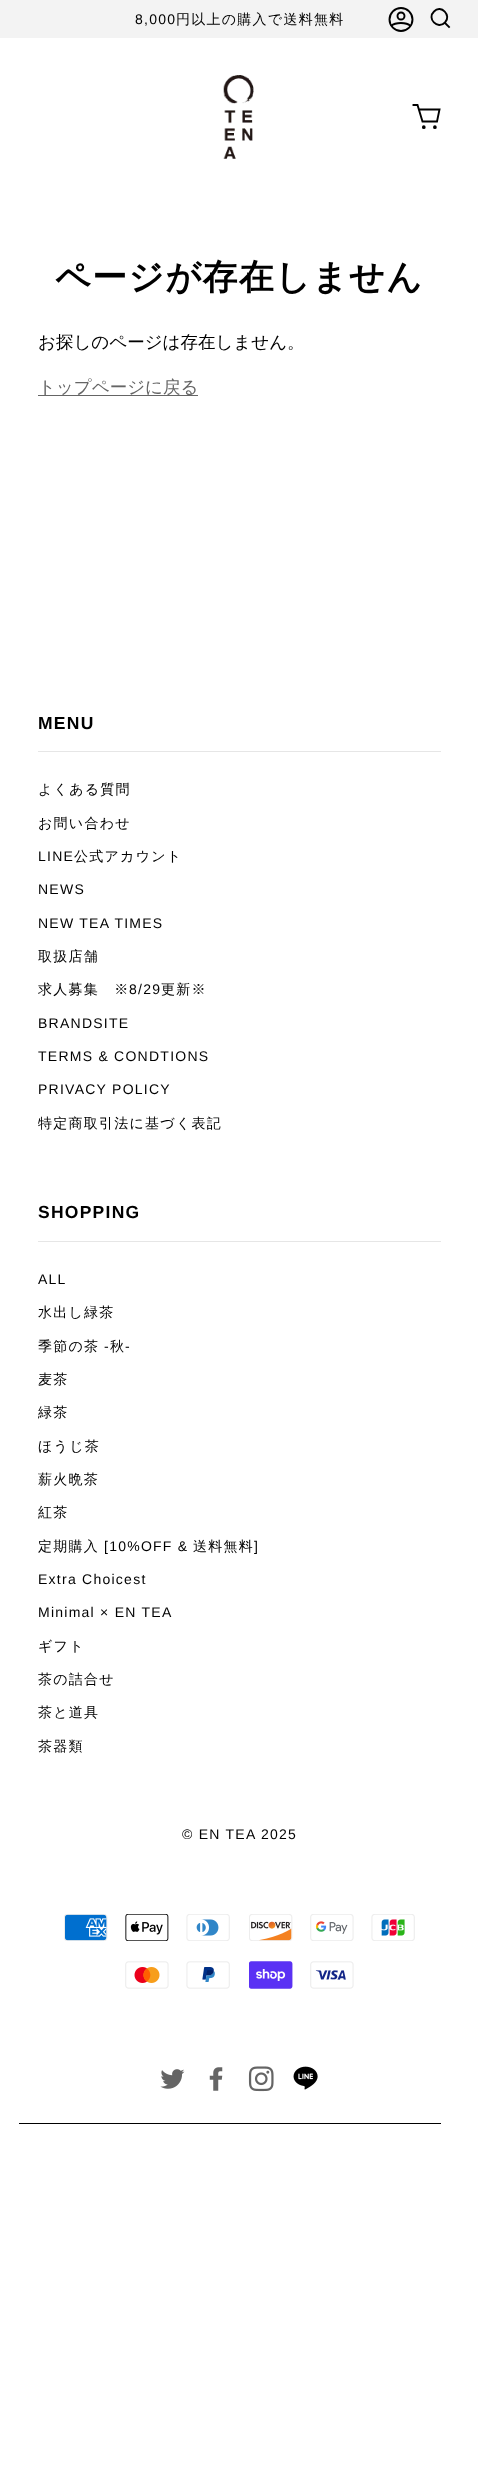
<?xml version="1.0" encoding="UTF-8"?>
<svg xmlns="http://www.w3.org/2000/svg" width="478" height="2465">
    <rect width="100%" height="100%" fill="#FFFFFF"/>
    <rect x="0" y="0" width="478" height="38" fill="#F3F3F3"/>
    <text x="135" y="24" font-family="Liberation Sans" font-size="14" letter-spacing="1.25" fill="#000000">8,000</text>
    <text x="176" y="24" font-family="WenQuanYi Zen Hei" font-size="14" font-weight="500" letter-spacing="1.25" fill="#000000">円以上の購入で送料無料</text>
    <circle cx="401" cy="19.5" r="11.5" fill="none" stroke="#000000" stroke-width="1.9"/>
    <circle cx="401" cy="16" r="3.5" fill="none" stroke="#000000" stroke-width="1.9"/>
    <path d="M 391 26 C 395.5 22 406.5 22 410.5 26" fill="none" stroke="#000000" stroke-width="1.9"/>
    <path d="M 434 11.5 C 441 4 452 15.5 445 22.5 C 437.5 30 426.5 18.5 434 11.5 Z" fill="none" stroke="#000000" stroke-width="1.9"/>
    <path d="M 445.5 23.5 L 449 27" fill="none" stroke="#000000" stroke-width="1.9" stroke-linecap="square"/>
    <image x="223" y="75" width="31" height="84" href="img_01.png"/>
    <path d="M 413.5 105 H 417.5 L 422.5 121.5 H 437 L 439.5 109.5 H 419" fill="none" stroke="#000000" stroke-width="1.9" stroke-linecap="square"/>
    <circle cx="434.9" cy="127.2" r="0.9" fill="none" stroke="#000000" stroke-width="1.9"/>
    <circle cx="423.8" cy="127.2" r="0.9" fill="none" stroke="#000000" stroke-width="1.9"/>
    <text x="55" y="289" font-family="WenQuanYi Zen Hei" font-size="35" font-weight="700" letter-spacing="1.25" fill="#000000">ページが存在しません</text>
    <text x="38" y="348" font-family="WenQuanYi Zen Hei" font-size="17.5" font-weight="500" fill="#000000">お探しのページは存在しません。</text>
    <rect x="38" y="395" width="160" height="1" fill="#656565"/>
    <text x="38" y="393" font-family="WenQuanYi Zen Hei" font-size="17.5" font-weight="500" fill="#656565">トップページに戻る</text>
    <rect x="38" y="751" width="403" height="1" fill="#E6E6E6"/>
    <text x="38" y="729" font-family="Liberation Sans" font-size="17.5" font-weight="700" letter-spacing="1.25" fill="#000000">MENU</text>
    <text x="38" y="794" font-family="WenQuanYi Zen Hei" font-size="14" font-weight="500" letter-spacing="1.25" fill="#000000">よくある質問</text>
    <text x="38" y="828" font-family="WenQuanYi Zen Hei" font-size="14" font-weight="500" letter-spacing="1.25" fill="#000000">お問い合わせ</text>
    <text x="38" y="861" font-family="Liberation Sans" font-size="14" letter-spacing="1.25" fill="#000000">LINE</text>
    <text x="74" y="861" font-family="WenQuanYi Zen Hei" font-size="14" font-weight="500" letter-spacing="1.25" fill="#000000">公式アカウント</text>
    <text x="38" y="894" font-family="Liberation Sans" font-size="14" letter-spacing="1.25" fill="#000000">NEWS</text>
    <text x="38" y="928" font-family="Liberation Sans" font-size="14" letter-spacing="1.25" fill="#000000">NEW TEA TIMES</text>
    <text x="38" y="961" font-family="WenQuanYi Zen Hei" font-size="14" font-weight="500" letter-spacing="1.25" fill="#000000">取扱店舗</text>
    <text x="38" y="994" font-family="WenQuanYi Zen Hei" font-size="14" font-weight="500" letter-spacing="1.25" fill="#000000">求人募集　※</text>
    <text x="129" y="994" font-family="Liberation Sans" font-size="14" letter-spacing="1.25" fill="#000000">8/29</text>
    <text x="161" y="994" font-family="WenQuanYi Zen Hei" font-size="14" font-weight="500" letter-spacing="1.25" fill="#000000">更新※</text>
    <text x="38" y="1028" font-family="Liberation Sans" font-size="14" letter-spacing="1.25" fill="#000000">BRANDSITE</text>
    <text x="38" y="1061" font-family="Liberation Sans" font-size="14" letter-spacing="1.25" fill="#000000">TERMS &amp; CONDTIONS</text>
    <text x="38" y="1094" font-family="Liberation Sans" font-size="14" letter-spacing="1.25" fill="#000000">PRIVACY POLICY</text>
    <text x="38" y="1128" font-family="WenQuanYi Zen Hei" font-size="14" font-weight="500" letter-spacing="1.25" fill="#000000">特定商取引法に基づく表記</text>
    <rect x="38" y="1241" width="403" height="1" fill="#E6E6E6"/>
    <text x="38" y="1218" font-family="Liberation Sans" font-size="17.5" font-weight="700" letter-spacing="1.25" fill="#000000">SHOPPING</text>
    <text x="38" y="1284" font-family="Liberation Sans" font-size="14" letter-spacing="1.25" fill="#000000">ALL</text>
    <text x="38" y="1317" font-family="WenQuanYi Zen Hei" font-size="14" font-weight="500" letter-spacing="1.25" fill="#000000">水出し緑茶</text>
    <text x="38" y="1351" font-family="WenQuanYi Zen Hei" font-size="14" font-weight="500" letter-spacing="1.25" fill="#000000">季節の茶</text>
    <text x="104" y="1351" font-family="Liberation Sans" font-size="14" letter-spacing="1.25" fill="#000000">-</text>
    <text x="110" y="1351" font-family="WenQuanYi Zen Hei" font-size="14" font-weight="500" letter-spacing="1.25" fill="#000000">秋</text>
    <text x="125" y="1351" font-family="Liberation Sans" font-size="14" letter-spacing="1.25" fill="#000000">-</text>
    <text x="38" y="1384" font-family="WenQuanYi Zen Hei" font-size="14" font-weight="500" letter-spacing="1.25" fill="#000000">麦茶</text>
    <text x="38" y="1417" font-family="WenQuanYi Zen Hei" font-size="14" font-weight="500" letter-spacing="1.25" fill="#000000">緑茶</text>
    <text x="38" y="1451" font-family="WenQuanYi Zen Hei" font-size="14" font-weight="500" letter-spacing="1.25" fill="#000000">ほうじ茶</text>
    <text x="38" y="1484" font-family="WenQuanYi Zen Hei" font-size="14" font-weight="500" letter-spacing="1.25" fill="#000000">薪火晩茶</text>
    <text x="38" y="1517" font-family="WenQuanYi Zen Hei" font-size="14" font-weight="500" letter-spacing="1.25" fill="#000000">紅茶</text>
    <text x="38" y="1551" font-family="WenQuanYi Zen Hei" font-size="14" font-weight="500" letter-spacing="1.25" fill="#000000">定期購入</text>
    <text x="104" y="1551" font-family="Liberation Sans" font-size="14" letter-spacing="1.25" fill="#000000">[10%OFF &amp;</text>
    <text x="193" y="1551" font-family="WenQuanYi Zen Hei" font-size="14" font-weight="500" letter-spacing="1.25" fill="#000000">送料無料</text>
    <text x="254" y="1551" font-family="Liberation Sans" font-size="14" letter-spacing="1.25" fill="#000000">]</text>
    <text x="38" y="1584" font-family="Liberation Sans" font-size="14" letter-spacing="1.25" fill="#000000">Extra Choicest</text>
    <text x="38" y="1617" font-family="Liberation Sans" font-size="14" letter-spacing="1.25" fill="#000000">Minimal × EN TEA</text>
    <text x="38" y="1651" font-family="WenQuanYi Zen Hei" font-size="14" font-weight="500" letter-spacing="1.25" fill="#000000">ギフト</text>
    <text x="38" y="1684" font-family="WenQuanYi Zen Hei" font-size="14" font-weight="500" letter-spacing="1.25" fill="#000000">茶の詰合せ</text>
    <text x="38" y="1717" font-family="WenQuanYi Zen Hei" font-size="14" font-weight="500" letter-spacing="1.25" fill="#000000">茶と道具</text>
    <text x="38" y="1751" font-family="WenQuanYi Zen Hei" font-size="14" font-weight="500" letter-spacing="1.25" fill="#000000">茶器類</text>
    <text x="182" y="1839" font-family="Liberation Sans" font-size="14" letter-spacing="1.25" fill="#000000">© EN TEA 2025</text>
    <image x="64" y="1914" width="44" height="27" href="img_02.png"/>
    <image x="125" y="1914" width="44" height="27" href="img_03.png"/>
    <image x="186" y="1914" width="44" height="27" href="img_04.png"/>
    <image x="249" y="1914" width="44" height="27" href="img_05.png"/>
    <image x="310" y="1914" width="44" height="27" href="img_06.png"/>
    <image x="371" y="1914" width="44" height="27" href="img_07.png"/>
    <image x="125" y="1961" width="44" height="28" href="img_08.png"/>
    <image x="186" y="1961" width="44" height="28" href="img_09.png"/>
    <image x="249" y="1961" width="44" height="28" href="img_10.png"/>
    <image x="310" y="1961" width="44" height="28" href="img_11.png"/>
    <image x="160" y="2069" width="25" height="20" href="img_12.png"/>
    <image x="209" y="2067" width="14" height="24" href="img_13.png"/>
    <image x="248" y="2066" width="26" height="26" href="img_14.png"/>
    <image x="293" y="2066" width="25" height="24" href="img_15.png"/>
    <rect x="19" y="2123" width="422" height="1" fill="#000000"/>
</svg>
